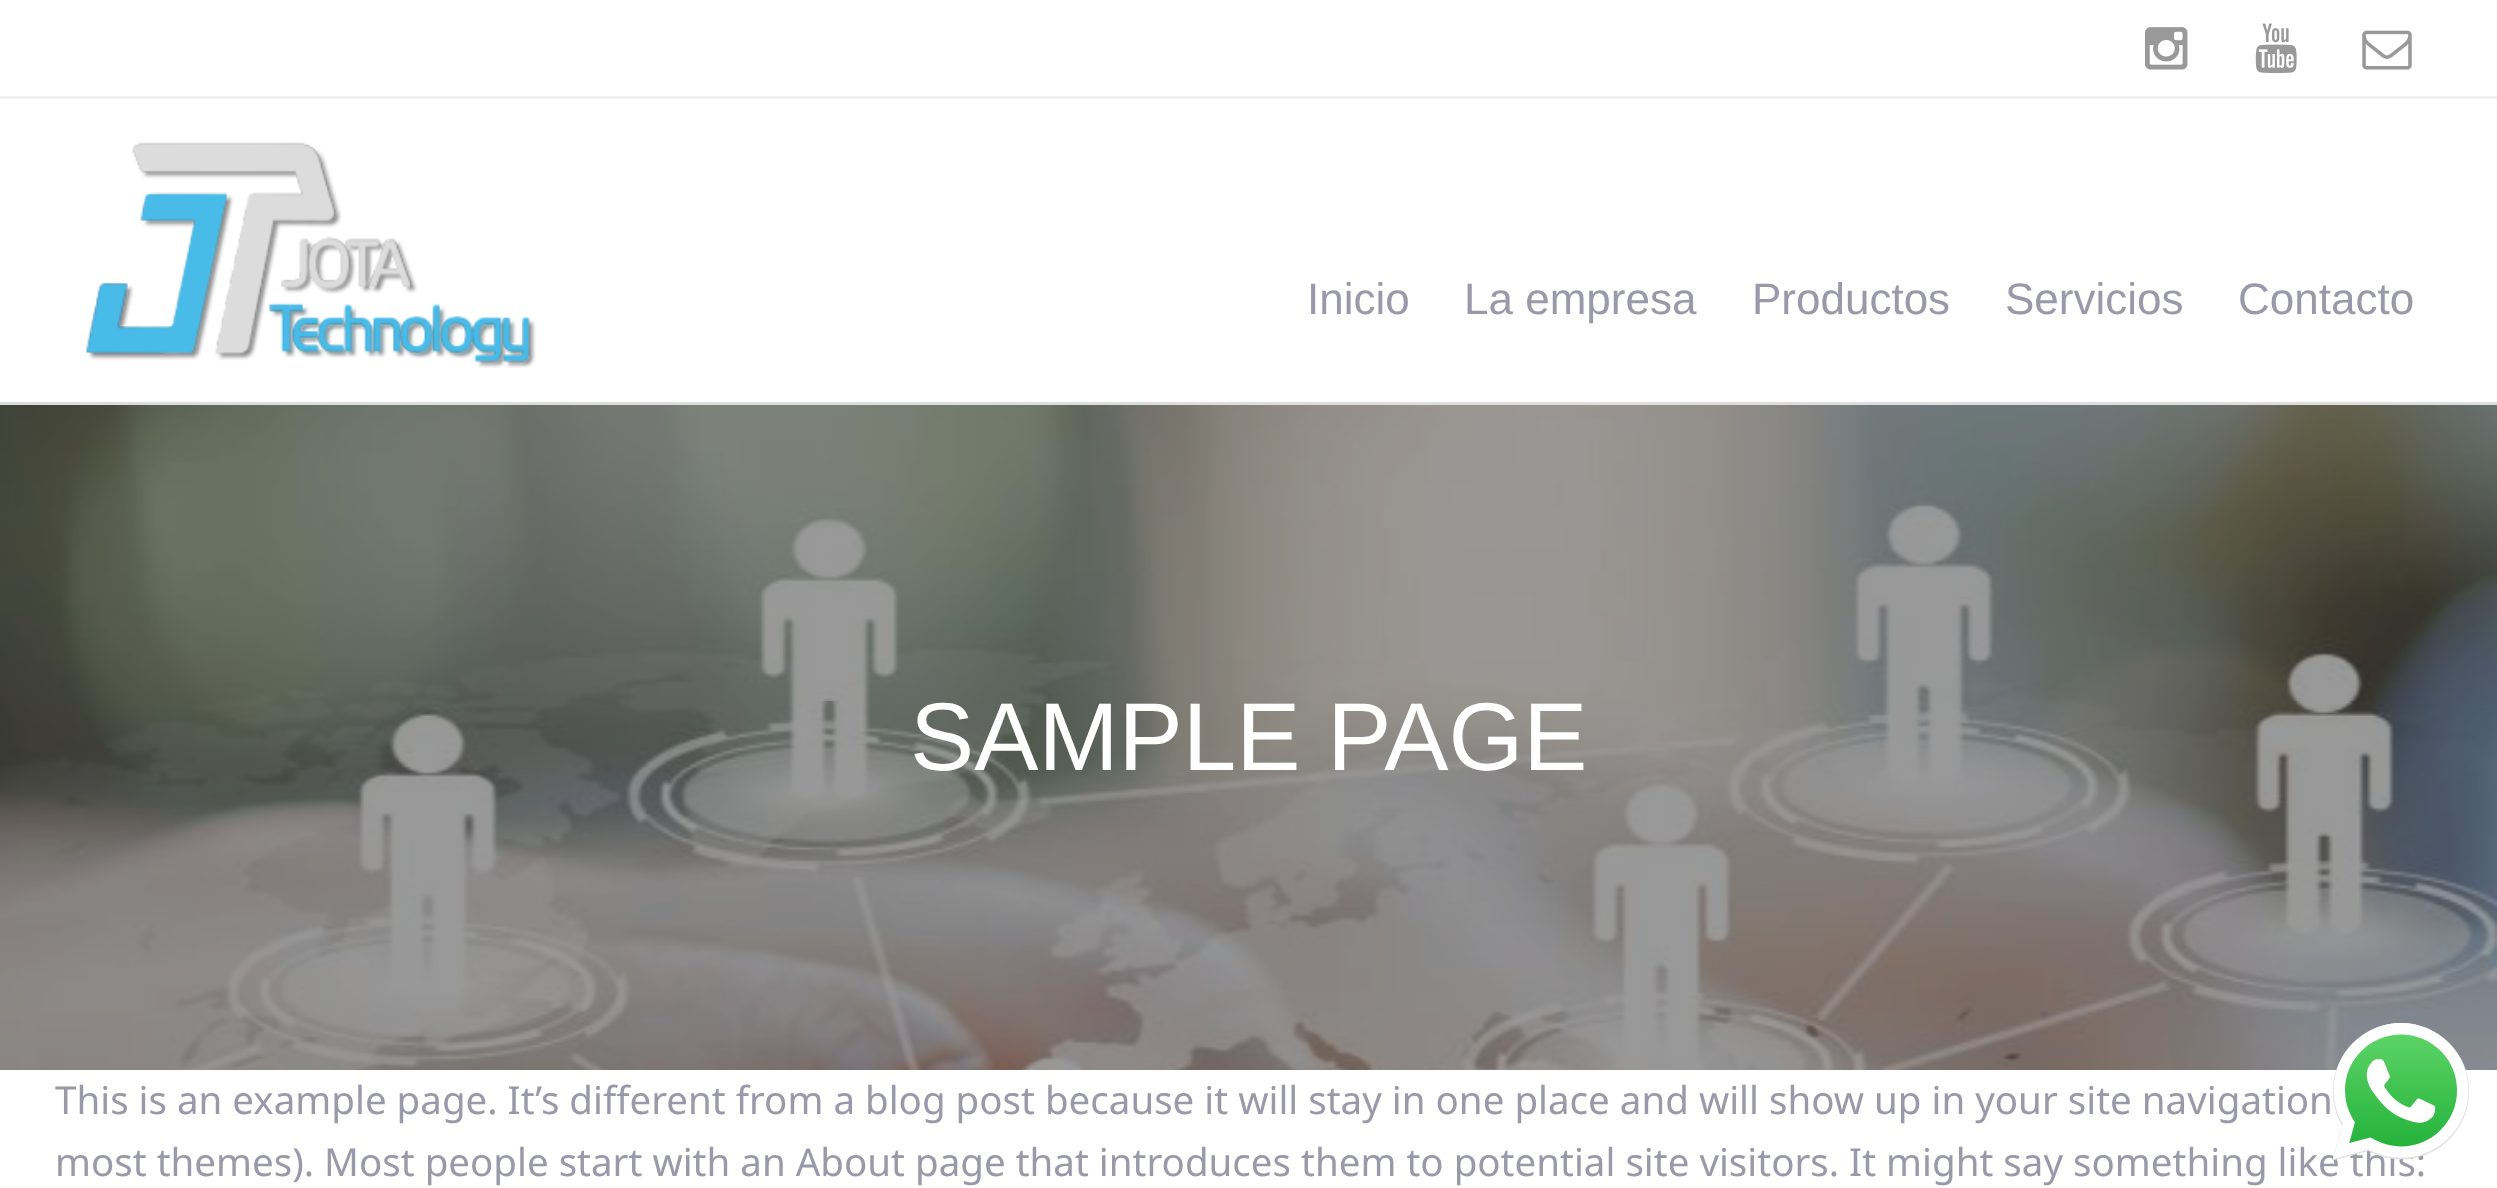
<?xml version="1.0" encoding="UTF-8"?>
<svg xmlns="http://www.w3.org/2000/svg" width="2497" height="1188">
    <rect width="100%" height="100%" fill="#FFFFFF"/>
    <image x="0" y="405" width="2497" height="665" href="img_01.png"/>
    <rect x="0" y="96" width="2497" height="3" fill="#F0F0F0"/>
    <image x="2145" y="27" width="43" height="43" href="img_02.png"/>
    <image x="2255" y="23" width="42" height="51" href="img_03.png"/>
    <image x="2362" y="30" width="50" height="40" href="img_04.png"/>
    <image x="86" y="142" width="450" height="226" href="img_05.png"/>
    <text x="1307" y="314" font-family="Liberation Sans" font-size="44" fill="#9999AA">Inicio</text>
    <text x="1464" y="314" font-family="Liberation Sans" font-size="44" fill="#9999AA">La empresa</text>
    <text x="1752" y="314" font-family="Liberation Sans" font-size="44" fill="#9999AA">Productos</text>
    <text x="2005" y="314" font-family="Liberation Sans" font-size="44" fill="#9999AA">Servicios</text>
    <text x="2238" y="314" font-family="Liberation Sans" font-size="44" fill="#9999AA">Contacto</text>
    <rect x="0" y="405" width="2497" height="665" fill="#000000" fill-opacity="0.4"/>
    <rect x="0" y="402" width="2497" height="3" fill="#DDDDDD"/>
    <text x="910" y="770" font-family="Liberation Sans" font-size="96.25" fill="#FFFFFF">SAMPLE PAGE</text>
    <text font-family="Noto Sans" font-size="38.5" fill="#9999AA">
        <tspan x="55" y="1114">This is an example page. It’s different from a blog post because it will stay in one place and will show up in your site navigation</tspan>
        <tspan x="55" y="1176">most themes). Most people start with an About page that introduces them to potential site visitors. It might say something like this:</tspan>
    </text>
    <image x="2332" y="1023" width="137" height="137" href="img_06.png"/>
</svg>
